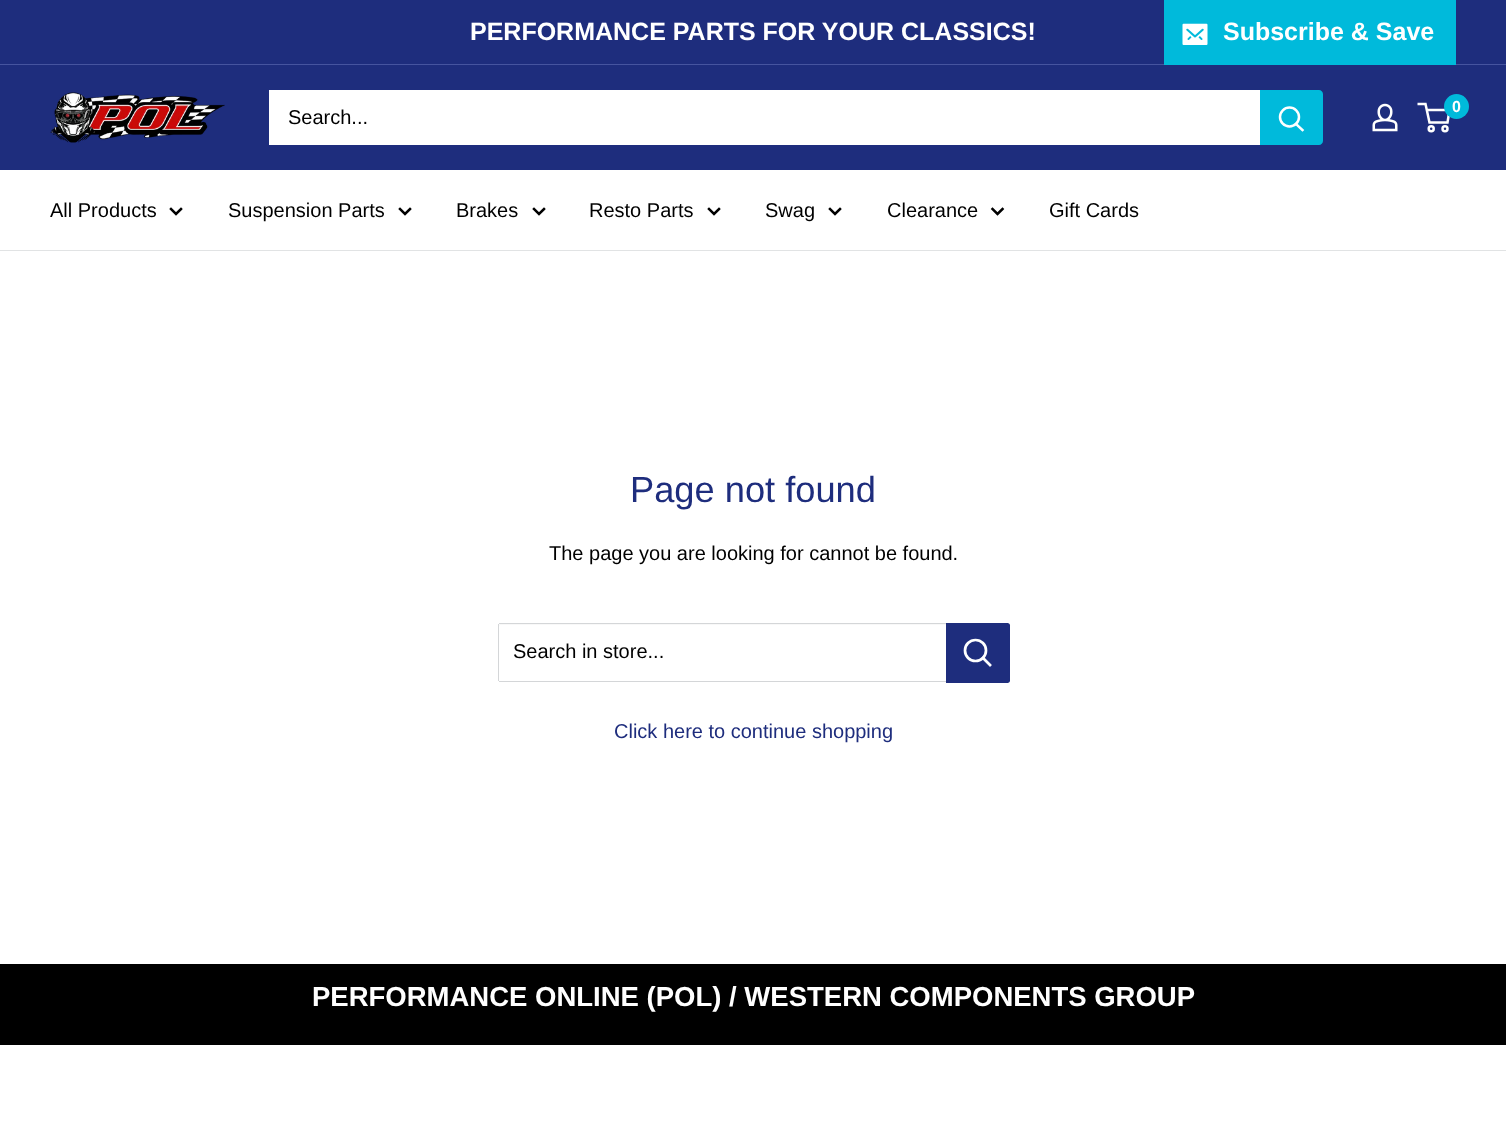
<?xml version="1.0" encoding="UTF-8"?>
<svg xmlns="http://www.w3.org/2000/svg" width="1506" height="1144">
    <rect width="100%" height="100%" fill="#FFFFFF"/>
    <rect x="0" y="0" width="1506" height="64" fill="#1E2D7D"/>
    <rect x="0" y="64" width="1506" height="1" fill="#46549F"/>
    <text x="470" y="40" font-family="Liberation Sans" font-size="25" font-weight="700" fill="#FFFFFF">PERFORMANCE PARTS FOR YOUR CLASSICS!</text>
    <rect x="1164" y="0" width="292" height="65" fill="#00BADB"/>
    <image x="1182" y="23" width="26" height="22" href="img_01.png"/>
    <text x="1223" y="40" font-family="Liberation Sans" font-size="25" font-weight="700" fill="#FFFFFF">Subscribe &amp; Save</text>
    <rect x="0" y="65" width="1506" height="105" fill="#1E2D7D"/>
    <image x="50" y="92" width="175" height="51" href="img_02.png"/>
    <image x="1372" y="103" width="26" height="29" href="img_03.png"/>
    <circle cx="1431.2" cy="128.8" r="2.5" fill="none" stroke="#FFFFFF" stroke-width="2.5"/>
    <circle cx="1445" cy="128.8" r="2.5" fill="none" stroke="#FFFFFF" stroke-width="2.5"/>
    <path d="M 1426.5 110 H 1449.5 L 1447.5 122.5 H 1429.5 L 1425.5 104 H 1417.5" fill="none" stroke="#FFFFFF" stroke-width="2.5"/>
    <circle cx="1456.5" cy="106.5" r="12.5" fill="#00BADB"/>
    <text x="1452" y="112" font-family="Liberation Sans" font-size="16" font-weight="700" fill="#FFFFFF">0</text>
    <rect x="269" y="90" width="991" height="55" fill="#FFFFFF"/>
    <text x="288" y="124" font-family="Liberation Sans" font-size="20" fill="#000000">Search...</text>
    <path d="M 1260 90 H 1319 C 1321 90 1323 92 1323 94 V 141 C 1323 143 1321 145 1319 145 H 1260 Z" fill="#00BADB"/>
    <path d="M 1302.5 130 L 1296 124" fill="none" stroke="#FFFFFF" stroke-width="2.5" stroke-linecap="square"/>
    <circle cx="1289.5" cy="117" r="9.5" fill="none" stroke="#FFFFFF" stroke-width="2.5"/>
    <rect x="0" y="250" width="1506" height="1" fill="#E1E3E4"/>
    <text x="50" y="217" font-family="Liberation Sans" font-size="20" fill="#000000">All Products</text>
    <path d="M 181 209 L 176 214 L 171 209" fill="none" stroke="#000000" stroke-width="2.5" stroke-linecap="square"/>
    <text x="228" y="217" font-family="Liberation Sans" font-size="20" fill="#000000">Suspension Parts</text>
    <path d="M 410 209 L 405 214 L 400 209" fill="none" stroke="#000000" stroke-width="2.5" stroke-linecap="square"/>
    <text x="456" y="217" font-family="Liberation Sans" font-size="20" fill="#000000">Brakes</text>
    <path d="M 544 209 L 539 214 L 534 209" fill="none" stroke="#000000" stroke-width="2.5" stroke-linecap="square"/>
    <text x="589" y="217" font-family="Liberation Sans" font-size="20" fill="#000000">Resto Parts</text>
    <path d="M 719 209 L 714 214 L 709 209" fill="none" stroke="#000000" stroke-width="2.5" stroke-linecap="square"/>
    <text x="765" y="217" font-family="Liberation Sans" font-size="20" fill="#000000">Swag</text>
    <path d="M 840 209 L 835 214 L 830 209" fill="none" stroke="#000000" stroke-width="2.5" stroke-linecap="square"/>
    <text x="887" y="217" font-family="Liberation Sans" font-size="20" fill="#000000">Clearance</text>
    <path d="M 1002.5 209 L 997.5 214 L 992.5 209" fill="none" stroke="#000000" stroke-width="2.5" stroke-linecap="square"/>
    <text x="1049" y="217" font-family="Liberation Sans" font-size="20" fill="#000000">Gift Cards</text>
    <text x="630" y="502" font-family="Liberation Sans" font-size="36.25" fill="#1E2D7D">Page not found</text>
    <text x="549" y="560" font-family="Liberation Sans" font-size="20" fill="#000000">The page you are looking for cannot be found.</text>
    <path d="M 500 625 H 946 V 624 H 500 L 499 625 V 626 Z" fill="#F8F8F8"/>
    <rect x="499" y="623" width="447" height="1" fill="#D4D6D8"/>
    <rect x="499" y="681" width="447" height="1" fill="#D4D6D8"/>
    <rect x="498" y="624" width="1" height="57" fill="#D4D6D8"/>
    <text x="513" y="658" font-family="Liberation Sans" font-size="20" fill="#000000">Search in store...</text>
    <path d="M 946 623 H 1007.5 C 1009 623 1010 624 1010 625.5 V 680.5 C 1010 682 1009 683 1007.5 683 H 946 Z" fill="#1E2D7D"/>
    <path d="M 990 665 L 983 658" fill="none" stroke="#FFFFFF" stroke-width="2.7" stroke-linecap="square"/>
    <circle cx="975.5" cy="650.5" r="10.5" fill="none" stroke="#FFFFFF" stroke-width="2.7"/>
    <text x="614" y="738" font-family="Liberation Sans" font-size="20" fill="#1E2D7D">Click here to continue shopping</text>
    <rect x="0" y="964" width="1506" height="81" fill="#000000"/>
    <text x="312" y="1006" font-family="Liberation Sans" font-size="27.5" font-weight="700" fill="#FFFFFF">PERFORMANCE ONLINE (POL) / WESTERN COMPONENTS GROUP</text>
</svg>
